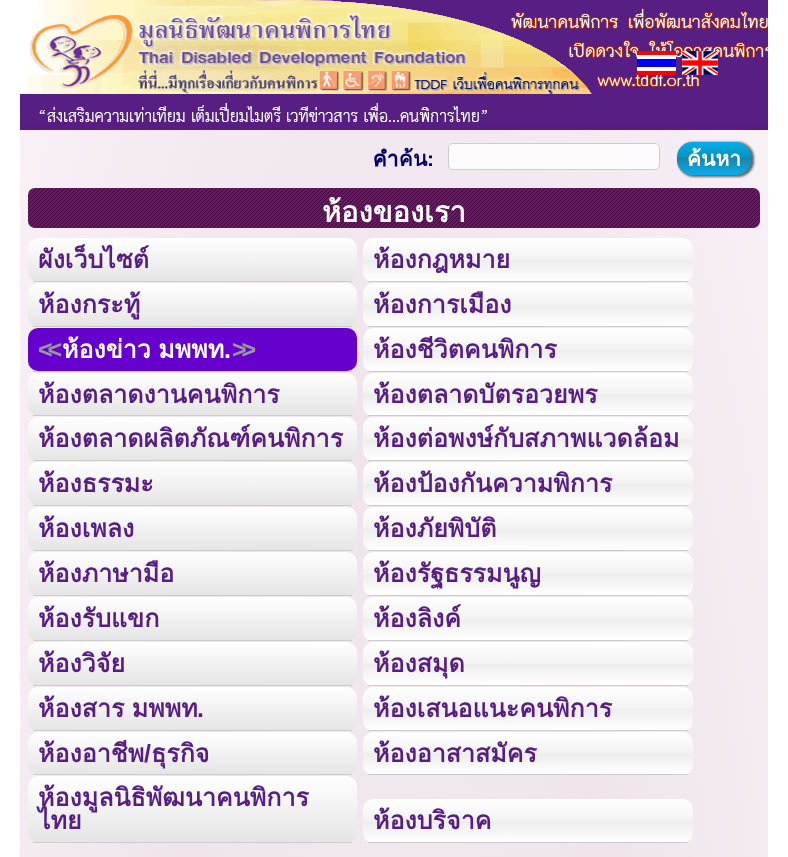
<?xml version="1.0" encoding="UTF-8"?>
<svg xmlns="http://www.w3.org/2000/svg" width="788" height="857">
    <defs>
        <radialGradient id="g1" gradientUnits="userSpaceOnUse" cx="0" cy="0" r="1" gradientTransform="matrix(529 0 0 2145 394 1517)"><stop offset="0" stop-color="#F5F0F4"/><stop offset="0.5" stop-color="#EFE4EC"/><stop offset="1" stop-color="#F9F2F7"/></radialGradient>
        <filter id="blur1" x="-50%" y="-200%" width="200%" height="500%"><feGaussianBlur stdDeviation="1"/></filter>
        <linearGradient id="g2" gradientUnits="userSpaceOnUse" x1="714" y1="142" x2="714" y2="175"><stop offset="0" stop-color="#07ADEA"/><stop offset="0.47" stop-color="#0593BF"/><stop offset="0.49" stop-color="#1A83AD"/><stop offset="1" stop-color="#09AEEA"/></linearGradient>
        <clipPath id="clip1"><rect x="28" y="238" width="329" height="44" rx="10"/></clipPath>
        <linearGradient id="g3" gradientUnits="userSpaceOnUse" x1="193" y1="238" x2="193" y2="281"><stop offset="0" stop-color="#FFFFFF"/><stop offset="1" stop-color="#E5E5E5"/></linearGradient>
        <clipPath id="clip2"><rect x="363" y="238" width="330" height="44" rx="10"/></clipPath>
        <linearGradient id="g4" gradientUnits="userSpaceOnUse" x1="528" y1="238" x2="528" y2="281"><stop offset="0" stop-color="#FFFFFF"/><stop offset="0.5" stop-color="#F3F3F3"/><stop offset="0.51" stop-color="#EDEDED"/><stop offset="1" stop-color="#FFFFFF"/></linearGradient>
        <clipPath id="clip3"><rect x="28" y="283" width="329" height="44" rx="10"/></clipPath>
        <linearGradient id="g5" gradientUnits="userSpaceOnUse" x1="193" y1="283" x2="193" y2="326"><stop offset="0" stop-color="#FFFFFF"/><stop offset="1" stop-color="#E5E5E5"/></linearGradient>
        <clipPath id="clip4"><rect x="363" y="283" width="330" height="44" rx="10"/></clipPath>
        <linearGradient id="g6" gradientUnits="userSpaceOnUse" x1="528" y1="283" x2="528" y2="326"><stop offset="0" stop-color="#FFFFFF"/><stop offset="0.5" stop-color="#F3F3F3"/><stop offset="0.51" stop-color="#EDEDED"/><stop offset="1" stop-color="#FFFFFF"/></linearGradient>
        <clipPath id="clip5"><rect x="28" y="328" width="329" height="44" rx="10"/></clipPath>
        <linearGradient id="g7" gradientUnits="userSpaceOnUse" x1="193" y1="328" x2="193" y2="371"><stop offset="0" stop-color="#FFFFFF"/><stop offset="1" stop-color="#E5E5E5"/></linearGradient>
        <clipPath id="clip6"><rect x="363" y="328" width="330" height="44" rx="10"/></clipPath>
        <linearGradient id="g8" gradientUnits="userSpaceOnUse" x1="528" y1="328" x2="528" y2="371"><stop offset="0" stop-color="#FFFFFF"/><stop offset="0.5" stop-color="#F3F3F3"/><stop offset="0.51" stop-color="#EDEDED"/><stop offset="1" stop-color="#FFFFFF"/></linearGradient>
        <clipPath id="clip7"><rect x="28" y="373" width="329" height="43" rx="10"/></clipPath>
        <linearGradient id="g9" gradientUnits="userSpaceOnUse" x1="193" y1="373" x2="193" y2="415"><stop offset="0" stop-color="#FFFFFF"/><stop offset="1" stop-color="#E5E5E5"/></linearGradient>
        <clipPath id="clip8"><rect x="363" y="373" width="330" height="43" rx="10"/></clipPath>
        <linearGradient id="g10" gradientUnits="userSpaceOnUse" x1="528" y1="373" x2="528" y2="415"><stop offset="0" stop-color="#FFFFFF"/><stop offset="0.5" stop-color="#F3F3F3"/><stop offset="0.51" stop-color="#EDEDED"/><stop offset="1" stop-color="#FFFFFF"/></linearGradient>
        <clipPath id="clip9"><rect x="28" y="417" width="329" height="44" rx="10"/></clipPath>
        <linearGradient id="g11" gradientUnits="userSpaceOnUse" x1="193" y1="417" x2="193" y2="460"><stop offset="0" stop-color="#FFFFFF"/><stop offset="1" stop-color="#E5E5E5"/></linearGradient>
        <clipPath id="clip10"><rect x="363" y="417" width="330" height="44" rx="10"/></clipPath>
        <linearGradient id="g12" gradientUnits="userSpaceOnUse" x1="528" y1="417" x2="528" y2="460"><stop offset="0" stop-color="#FFFFFF"/><stop offset="0.5" stop-color="#F3F3F3"/><stop offset="0.51" stop-color="#EDEDED"/><stop offset="1" stop-color="#FFFFFF"/></linearGradient>
        <clipPath id="clip11"><rect x="28" y="462" width="329" height="44" rx="10"/></clipPath>
        <linearGradient id="g13" gradientUnits="userSpaceOnUse" x1="193" y1="462" x2="193" y2="505"><stop offset="0" stop-color="#FFFFFF"/><stop offset="1" stop-color="#E5E5E5"/></linearGradient>
        <clipPath id="clip12"><rect x="363" y="462" width="330" height="44" rx="10"/></clipPath>
        <linearGradient id="g14" gradientUnits="userSpaceOnUse" x1="528" y1="462" x2="528" y2="505"><stop offset="0" stop-color="#FFFFFF"/><stop offset="0.5" stop-color="#F3F3F3"/><stop offset="0.51" stop-color="#EDEDED"/><stop offset="1" stop-color="#FFFFFF"/></linearGradient>
        <clipPath id="clip13"><rect x="28" y="507" width="329" height="44" rx="10"/></clipPath>
        <linearGradient id="g15" gradientUnits="userSpaceOnUse" x1="193" y1="507" x2="193" y2="550"><stop offset="0" stop-color="#FFFFFF"/><stop offset="1" stop-color="#E5E5E5"/></linearGradient>
        <clipPath id="clip14"><rect x="363" y="507" width="330" height="44" rx="10"/></clipPath>
        <linearGradient id="g16" gradientUnits="userSpaceOnUse" x1="528" y1="507" x2="528" y2="550"><stop offset="0" stop-color="#FFFFFF"/><stop offset="0.5" stop-color="#F3F3F3"/><stop offset="0.51" stop-color="#EDEDED"/><stop offset="1" stop-color="#FFFFFF"/></linearGradient>
        <clipPath id="clip15"><rect x="28" y="552" width="329" height="44" rx="10"/></clipPath>
        <linearGradient id="g17" gradientUnits="userSpaceOnUse" x1="193" y1="552" x2="193" y2="595"><stop offset="0" stop-color="#FFFFFF"/><stop offset="1" stop-color="#E5E5E5"/></linearGradient>
        <clipPath id="clip16"><rect x="363" y="552" width="330" height="44" rx="10"/></clipPath>
        <linearGradient id="g18" gradientUnits="userSpaceOnUse" x1="528" y1="552" x2="528" y2="595"><stop offset="0" stop-color="#FFFFFF"/><stop offset="0.5" stop-color="#F3F3F3"/><stop offset="0.51" stop-color="#EDEDED"/><stop offset="1" stop-color="#FFFFFF"/></linearGradient>
        <clipPath id="clip17"><rect x="28" y="597" width="329" height="44" rx="10"/></clipPath>
        <linearGradient id="g19" gradientUnits="userSpaceOnUse" x1="193" y1="597" x2="193" y2="640"><stop offset="0" stop-color="#FFFFFF"/><stop offset="1" stop-color="#E5E5E5"/></linearGradient>
        <clipPath id="clip18"><rect x="363" y="597" width="330" height="44" rx="10"/></clipPath>
        <linearGradient id="g20" gradientUnits="userSpaceOnUse" x1="528" y1="597" x2="528" y2="640"><stop offset="0" stop-color="#FFFFFF"/><stop offset="0.5" stop-color="#F3F3F3"/><stop offset="0.51" stop-color="#EDEDED"/><stop offset="1" stop-color="#FFFFFF"/></linearGradient>
        <clipPath id="clip19"><rect x="28" y="642" width="329" height="44" rx="10"/></clipPath>
        <linearGradient id="g21" gradientUnits="userSpaceOnUse" x1="193" y1="642" x2="193" y2="685"><stop offset="0" stop-color="#FFFFFF"/><stop offset="1" stop-color="#E5E5E5"/></linearGradient>
        <clipPath id="clip20"><rect x="363" y="642" width="330" height="44" rx="10"/></clipPath>
        <linearGradient id="g22" gradientUnits="userSpaceOnUse" x1="528" y1="642" x2="528" y2="685"><stop offset="0" stop-color="#FFFFFF"/><stop offset="0.5" stop-color="#F3F3F3"/><stop offset="0.51" stop-color="#EDEDED"/><stop offset="1" stop-color="#FFFFFF"/></linearGradient>
        <clipPath id="clip21"><rect x="28" y="687" width="329" height="44" rx="10"/></clipPath>
        <linearGradient id="g23" gradientUnits="userSpaceOnUse" x1="193" y1="687" x2="193" y2="730"><stop offset="0" stop-color="#FFFFFF"/><stop offset="1" stop-color="#E5E5E5"/></linearGradient>
        <clipPath id="clip22"><rect x="363" y="687" width="330" height="44" rx="10"/></clipPath>
        <linearGradient id="g24" gradientUnits="userSpaceOnUse" x1="528" y1="687" x2="528" y2="730"><stop offset="0" stop-color="#FFFFFF"/><stop offset="0.5" stop-color="#F3F3F3"/><stop offset="0.51" stop-color="#EDEDED"/><stop offset="1" stop-color="#FFFFFF"/></linearGradient>
        <clipPath id="clip23"><rect x="28" y="732" width="329" height="43" rx="10"/></clipPath>
        <linearGradient id="g25" gradientUnits="userSpaceOnUse" x1="193" y1="732" x2="193" y2="774"><stop offset="0" stop-color="#FFFFFF"/><stop offset="1" stop-color="#E5E5E5"/></linearGradient>
        <clipPath id="clip24"><rect x="363" y="732" width="330" height="43" rx="10"/></clipPath>
        <linearGradient id="g26" gradientUnits="userSpaceOnUse" x1="528" y1="732" x2="528" y2="774"><stop offset="0" stop-color="#FFFFFF"/><stop offset="0.5" stop-color="#F3F3F3"/><stop offset="0.51" stop-color="#EDEDED"/><stop offset="1" stop-color="#FFFFFF"/></linearGradient>
        <clipPath id="clip25"><rect x="28" y="776" width="329" height="67" rx="10"/></clipPath>
        <linearGradient id="g27" gradientUnits="userSpaceOnUse" x1="193" y1="776" x2="193" y2="842"><stop offset="0" stop-color="#FFFFFF"/><stop offset="1" stop-color="#E5E5E5"/></linearGradient>
        <clipPath id="clip26"><rect x="363" y="799" width="330" height="44" rx="10"/></clipPath>
        <linearGradient id="g28" gradientUnits="userSpaceOnUse" x1="528" y1="799" x2="528" y2="842"><stop offset="0" stop-color="#FFFFFF"/><stop offset="0.5" stop-color="#F3F3F3"/><stop offset="0.51" stop-color="#EDEDED"/><stop offset="1" stop-color="#FFFFFF"/></linearGradient>
    </defs>
    <rect width="100%" height="100%" fill="#FFFFFF"/>
    <rect x="20" y="130" width="748" height="727" fill="url(#g1)"/>
    <rect x="20" y="122" width="748" height="8" fill="#571D82"/>
    <image x="20" y="0" width="748" height="122" href="img_01.png"/>
    <image x="637" y="51" width="39" height="24" href="img_02.png"/>
    <image x="682" y="51" width="36" height="24" href="img_03.png"/>
    <text x="373" y="166" font-family="Loma" font-size="21" font-weight="700" fill="#000066">คำค้น</text>
    <text x="427" y="166" font-family="Liberation Sans" font-size="21" font-weight="700" fill="#000066">:</text>
    <rect x="448.5" y="143.5" width="211" height="26" rx="4.5" fill="#FFFFFF" fill-opacity="0.8" stroke="#CCCCCC"/>
    <rect x="678" y="142" width="76" height="35" rx="16" fill="#666666" filter="url(#blur1)"/>
    <rect x="677" y="142" width="74" height="33" rx="15" fill="url(#g2)"/>
    <text x="687" y="166" font-family="Loma" font-size="21" font-weight="700" fill="#FFFFFF">ค้นหา</text>
    <image x="28" y="188" width="732" height="40" href="img_04.png"/>
    <text x="322" y="222" font-family="Loma" font-size="29" font-weight="700" fill="#FFFFFF">ห้องของเรา</text>
    <g clip-path="url(#clip1)">
        <path d="M 38 238 H 347 C 352.5 238 357 242.5 357 248 V 281 H 28 V 248 C 28 242.5 32.5 238 38 238 Z" fill="url(#g3)"/>
    </g>
    <rect x="33" y="281" width="319" height="1" fill="#CCCCCC"/>
    <text x="38" y="268" font-family="Loma" font-size="25" font-weight="700" fill="#571D82">ผังเว็บไซต์</text>
    <g clip-path="url(#clip2)">
        <path d="M 373 238 H 683 C 688.5 238 693 242.5 693 248 V 281 H 363 V 248 C 363 242.5 367.5 238 373 238 Z" fill="url(#g4)"/>
    </g>
    <rect x="368" y="281" width="320" height="1" fill="#CCCCCC"/>
    <text x="373" y="268" font-family="Loma" font-size="25" font-weight="700" fill="#571D82">ห้องกฎหมาย</text>
    <g clip-path="url(#clip3)">
        <path d="M 38 283 H 347 C 352.5 283 357 287.5 357 293 V 326 H 28 V 293 C 28 287.5 32.5 283 38 283 Z" fill="url(#g5)"/>
    </g>
    <rect x="33" y="326" width="319" height="1" fill="#CCCCCC"/>
    <text x="38" y="313" font-family="Loma" font-size="25" font-weight="700" fill="#571D82">ห้องกระทู้</text>
    <g clip-path="url(#clip4)">
        <path d="M 373 283 H 683 C 688.5 283 693 287.5 693 293 V 326 H 363 V 293 C 363 287.5 367.5 283 373 283 Z" fill="url(#g6)"/>
    </g>
    <rect x="368" y="326" width="320" height="1" fill="#CCCCCC"/>
    <text x="373" y="313" font-family="Loma" font-size="25" font-weight="700" fill="#571D82">ห้องการเมือง</text>
    <g clip-path="url(#clip5)">
        <path d="M 38 328 H 347 C 352.5 328 357 332.5 357 338 V 371 H 28 V 338 C 28 332.5 32.5 328 38 328 Z" fill="url(#g7)"/>
    </g>
    <rect x="33" y="371" width="319" height="1" fill="#CCCCCC"/>
    <rect x="28" y="328" width="329" height="43" rx="10" fill="#6600CC"/>
    <text x="38" y="358" font-family="Liberation Sans" font-size="25" font-weight="700" letter-spacing="-5" fill="#999999">&lt;&lt;</text>
    <text x="62" y="358" word-spacing="-1" font-family="Loma" font-size="25" font-weight="700" fill="#FFFFFF">ห้องข่าว มพพท</text>
    <text x="224" y="358" font-family="Liberation Sans" font-size="25" font-weight="700" fill="#FFFFFF">.</text>
    <text x="232" y="358" font-family="Liberation Sans" font-size="25" font-weight="700" letter-spacing="-5" fill="#999999">&gt;&gt;</text>
    <g clip-path="url(#clip6)">
        <path d="M 373 328 H 683 C 688.5 328 693 332.5 693 338 V 371 H 363 V 338 C 363 332.5 367.5 328 373 328 Z" fill="url(#g8)"/>
    </g>
    <rect x="368" y="371" width="320" height="1" fill="#CCCCCC"/>
    <text x="373" y="358" font-family="Loma" font-size="25" font-weight="700" fill="#571D82">ห้องชีวิตคนพิการ</text>
    <g clip-path="url(#clip7)">
        <path d="M 38 373 H 347 C 352.5 373 357 377.5 357 383 V 415 H 28 V 383 C 28 377.5 32.5 373 38 373 Z" fill="url(#g9)"/>
    </g>
    <rect x="33" y="415" width="319" height="1" fill="#CCCCCC"/>
    <text x="38" y="403" font-family="Loma" font-size="25" font-weight="700" fill="#571D82">ห้องตลาดงานคนพิการ</text>
    <g clip-path="url(#clip8)">
        <path d="M 373 373 H 683 C 688.5 373 693 377.5 693 383 V 415 H 363 V 383 C 363 377.5 367.5 373 373 373 Z" fill="url(#g10)"/>
    </g>
    <rect x="368" y="415" width="320" height="1" fill="#CCCCCC"/>
    <text x="373" y="403" font-family="Loma" font-size="25" font-weight="700" fill="#571D82">ห้องตลาดบัตรอวยพร</text>
    <g clip-path="url(#clip9)">
        <path d="M 38 417 H 347 C 352.5 417 357 421.5 357 427 V 460 H 28 V 427 C 28 421.5 32.5 417 38 417 Z" fill="url(#g11)"/>
    </g>
    <rect x="33" y="460" width="319" height="1" fill="#CCCCCC"/>
    <text x="38" y="447" font-family="Loma" font-size="25" font-weight="700" fill="#571D82">ห้องตลาดผลิตภัณฑ์คนพิการ</text>
    <g clip-path="url(#clip10)">
        <path d="M 373 417 H 683 C 688.5 417 693 421.5 693 427 V 460 H 363 V 427 C 363 421.5 367.5 417 373 417 Z" fill="url(#g12)"/>
    </g>
    <rect x="368" y="460" width="320" height="1" fill="#CCCCCC"/>
    <text x="373" y="447" font-family="Loma" font-size="25" font-weight="700" fill="#571D82">ห้องต่อพงษ์กับสภาพแวดล้อม</text>
    <g clip-path="url(#clip11)">
        <path d="M 38 462 H 347 C 352.5 462 357 466.5 357 472 V 505 H 28 V 472 C 28 466.5 32.5 462 38 462 Z" fill="url(#g13)"/>
    </g>
    <rect x="33" y="505" width="319" height="1" fill="#CCCCCC"/>
    <text x="38" y="492" font-family="Loma" font-size="25" font-weight="700" fill="#571D82">ห้องธรรมะ</text>
    <g clip-path="url(#clip12)">
        <path d="M 373 462 H 683 C 688.5 462 693 466.5 693 472 V 505 H 363 V 472 C 363 466.5 367.5 462 373 462 Z" fill="url(#g14)"/>
    </g>
    <rect x="368" y="505" width="320" height="1" fill="#CCCCCC"/>
    <text x="373" y="492" font-family="Loma" font-size="25" font-weight="700" fill="#571D82">ห้องป้องกันความพิการ</text>
    <g clip-path="url(#clip13)">
        <path d="M 38 507 H 347 C 352.5 507 357 511.5 357 517 V 550 H 28 V 517 C 28 511.5 32.5 507 38 507 Z" fill="url(#g15)"/>
    </g>
    <rect x="33" y="550" width="319" height="1" fill="#CCCCCC"/>
    <text x="38" y="537" font-family="Loma" font-size="25" font-weight="700" fill="#571D82">ห้องเพลง</text>
    <g clip-path="url(#clip14)">
        <path d="M 373 507 H 683 C 688.5 507 693 511.5 693 517 V 550 H 363 V 517 C 363 511.5 367.5 507 373 507 Z" fill="url(#g16)"/>
    </g>
    <rect x="368" y="550" width="320" height="1" fill="#CCCCCC"/>
    <text x="373" y="537" font-family="Loma" font-size="25" font-weight="700" fill="#571D82">ห้องภัยพิบัติ</text>
    <g clip-path="url(#clip15)">
        <path d="M 38 552 H 347 C 352.5 552 357 556.5 357 562 V 595 H 28 V 562 C 28 556.5 32.5 552 38 552 Z" fill="url(#g17)"/>
    </g>
    <rect x="33" y="595" width="319" height="1" fill="#CCCCCC"/>
    <text x="38" y="582" font-family="Loma" font-size="25" font-weight="700" fill="#571D82">ห้องภาษามือ</text>
    <g clip-path="url(#clip16)">
        <path d="M 373 552 H 683 C 688.5 552 693 556.5 693 562 V 595 H 363 V 562 C 363 556.5 367.5 552 373 552 Z" fill="url(#g18)"/>
    </g>
    <rect x="368" y="595" width="320" height="1" fill="#CCCCCC"/>
    <text x="373" y="582" font-family="Loma" font-size="25" font-weight="700" fill="#571D82">ห้องรัฐธรรมนูญ</text>
    <g clip-path="url(#clip17)">
        <path d="M 38 597 H 347 C 352.5 597 357 601.5 357 607 V 640 H 28 V 607 C 28 601.5 32.5 597 38 597 Z" fill="url(#g19)"/>
    </g>
    <rect x="33" y="640" width="319" height="1" fill="#CCCCCC"/>
    <text x="38" y="627" font-family="Loma" font-size="25" font-weight="700" fill="#571D82">ห้องรับแขก</text>
    <g clip-path="url(#clip18)">
        <path d="M 373 597 H 683 C 688.5 597 693 601.5 693 607 V 640 H 363 V 607 C 363 601.5 367.5 597 373 597 Z" fill="url(#g20)"/>
    </g>
    <rect x="368" y="640" width="320" height="1" fill="#CCCCCC"/>
    <text x="373" y="627" font-family="Loma" font-size="25" font-weight="700" fill="#571D82">ห้องลิงค์</text>
    <g clip-path="url(#clip19)">
        <path d="M 38 642 H 347 C 352.5 642 357 646.5 357 652 V 685 H 28 V 652 C 28 646.5 32.5 642 38 642 Z" fill="url(#g21)"/>
    </g>
    <rect x="33" y="685" width="319" height="1" fill="#CCCCCC"/>
    <text x="38" y="672" font-family="Loma" font-size="25" font-weight="700" fill="#571D82">ห้องวิจัย</text>
    <g clip-path="url(#clip20)">
        <path d="M 373 642 H 683 C 688.5 642 693 646.5 693 652 V 685 H 363 V 652 C 363 646.5 367.5 642 373 642 Z" fill="url(#g22)"/>
    </g>
    <rect x="368" y="685" width="320" height="1" fill="#CCCCCC"/>
    <text x="373" y="672" font-family="Loma" font-size="25" font-weight="700" fill="#571D82">ห้องสมุด</text>
    <g clip-path="url(#clip21)">
        <path d="M 38 687 H 347 C 352.5 687 357 691.5 357 697 V 730 H 28 V 697 C 28 691.5 32.5 687 38 687 Z" fill="url(#g23)"/>
    </g>
    <rect x="33" y="730" width="319" height="1" fill="#CCCCCC"/>
    <text x="38" y="717" word-spacing="-1" font-family="Loma" font-size="25" font-weight="700" fill="#571D82">ห้องสาร มพพท</text>
    <text x="197" y="717" font-family="Liberation Sans" font-size="25" font-weight="700" fill="#571D82">.</text>
    <g clip-path="url(#clip22)">
        <path d="M 373 687 H 683 C 688.5 687 693 691.5 693 697 V 730 H 363 V 697 C 363 691.5 367.5 687 373 687 Z" fill="url(#g24)"/>
    </g>
    <rect x="368" y="730" width="320" height="1" fill="#CCCCCC"/>
    <text x="373" y="717" font-family="Loma" font-size="25" font-weight="700" fill="#571D82">ห้องเสนอแนะคนพิการ</text>
    <g clip-path="url(#clip23)">
        <path d="M 38 732 H 347 C 352.5 732 357 736.5 357 742 V 774 H 28 V 742 C 28 736.5 32.5 732 38 732 Z" fill="url(#g25)"/>
    </g>
    <rect x="33" y="774" width="319" height="1" fill="#CCCCCC"/>
    <text x="38" y="762" font-family="Loma" font-size="25" font-weight="700" fill="#571D82">ห้องอาชีพ</text>
    <text x="144" y="762" font-family="Liberation Sans" font-size="25" font-weight="700" fill="#571D82">/</text>
    <text x="151" y="762" font-family="Loma" font-size="25" font-weight="700" fill="#571D82">ธุรกิจ</text>
    <g clip-path="url(#clip24)">
        <path d="M 373 732 H 683 C 688.5 732 693 736.5 693 742 V 774 H 363 V 742 C 363 736.5 367.5 732 373 732 Z" fill="url(#g26)"/>
    </g>
    <rect x="368" y="774" width="320" height="1" fill="#CCCCCC"/>
    <text x="373" y="762" font-family="Loma" font-size="25" font-weight="700" fill="#571D82">ห้องอาสาสมัคร</text>
    <g clip-path="url(#clip25)">
        <path d="M 38 776 H 347 C 352.5 776 357 780.5 357 786 V 842 H 28 V 786 C 28 780.5 32.5 776 38 776 Z" fill="url(#g27)"/>
    </g>
    <rect x="33" y="842" width="319" height="1" fill="#CCCCCC"/>
    <text font-family="Loma" font-size="25" font-weight="700" fill="#571D82">
        <tspan x="38" y="806">ห้องมูลนิธิพัฒนาคนพิการ</tspan>
        <tspan x="38" y="829">ไทย</tspan>
    </text>
    <g clip-path="url(#clip26)">
        <path d="M 373 799 H 683 C 688.5 799 693 803.5 693 809 V 842 H 363 V 809 C 363 803.5 367.5 799 373 799 Z" fill="url(#g28)"/>
    </g>
    <rect x="368" y="842" width="320" height="1" fill="#CCCCCC"/>
    <text x="373" y="829" font-family="Loma" font-size="25" font-weight="700" fill="#571D82">ห้องบริจาค</text>
</svg>
